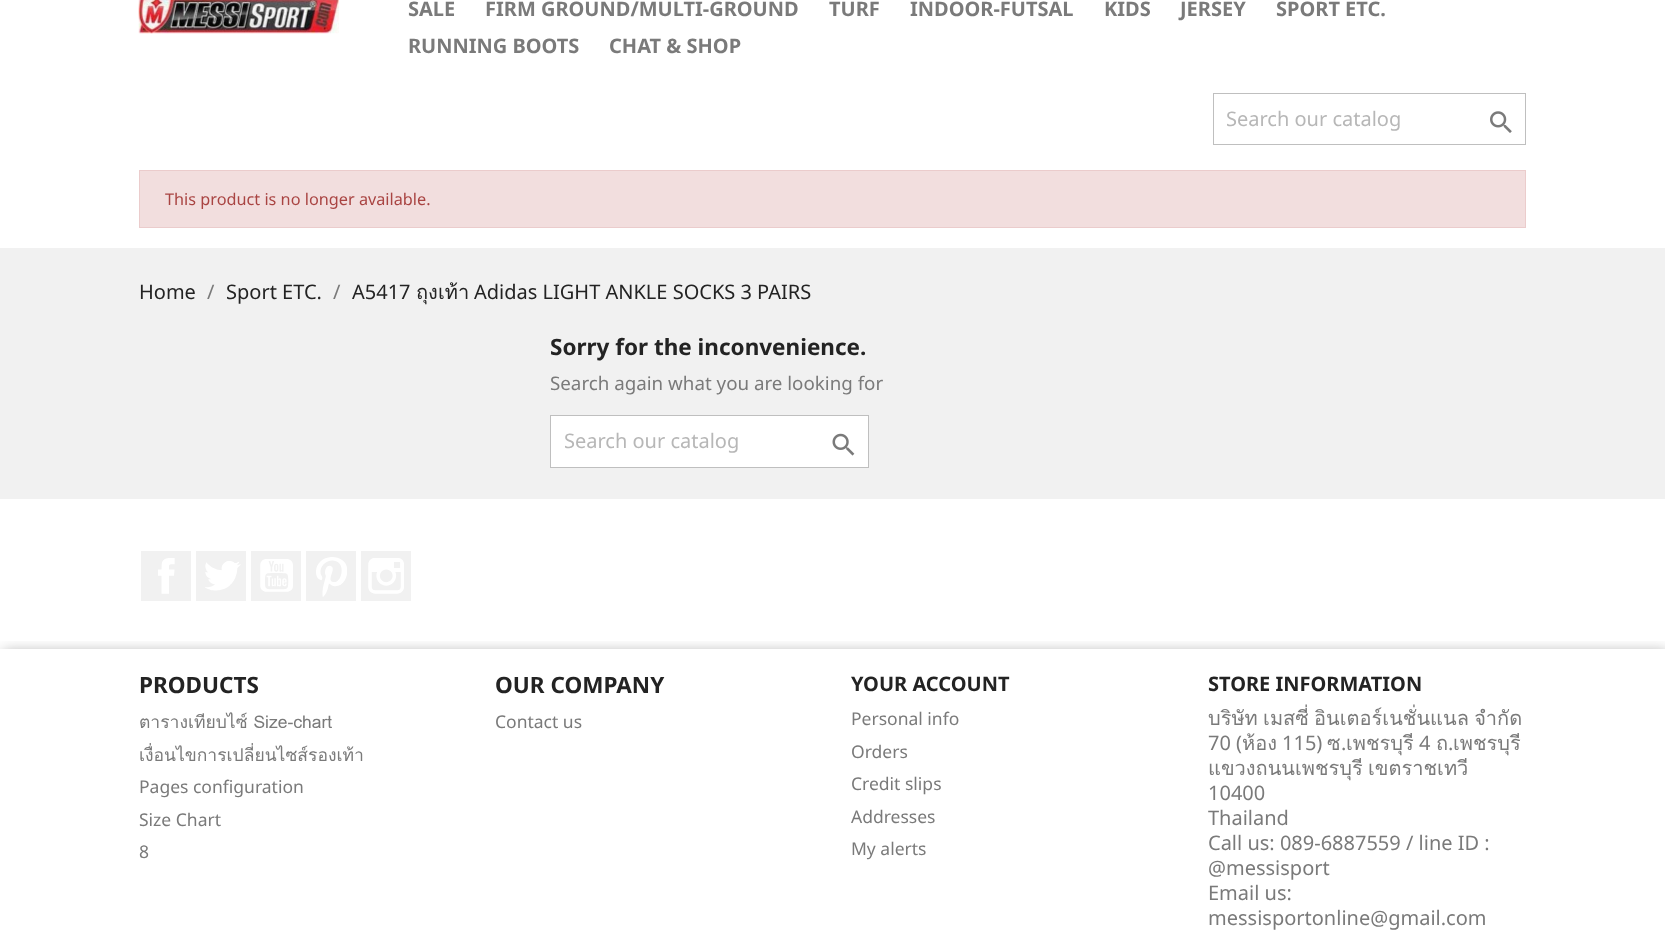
<?xml version="1.0" encoding="UTF-8"?>
<svg xmlns="http://www.w3.org/2000/svg" width="1665" height="930">
    <defs>
        <clipPath id="clip1"><rect x="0" y="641" width="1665" height="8"/></clipPath>
        <filter id="blur1" x="-50%" y="-200%" width="200%" height="500%"><feGaussianBlur stdDeviation="7"/></filter>
    </defs>
    <rect width="100%" height="100%" fill="#FFFFFF"/>
    <image x="138" y="0" width="201" height="34" href="img_01.png"/>
    <text x="408" y="16" font-family="Noto Sans" font-size="20" font-weight="700" fill="#7A7A7A">SALE</text>
    <text x="485" y="16" font-family="Noto Sans" font-size="20" font-weight="700" fill="#7A7A7A">FIRM GROUND/MULTI-GROUND</text>
    <text x="829" y="16" font-family="Noto Sans" font-size="20" font-weight="700" fill="#7A7A7A">TURF</text>
    <text x="910" y="16" font-family="Noto Sans" font-size="20" font-weight="700" fill="#7A7A7A">INDOOR-FUTSAL</text>
    <text x="1104" y="16" font-family="Noto Sans" font-size="20" font-weight="700" fill="#7A7A7A">KIDS</text>
    <text x="1180" y="16" font-family="Noto Sans" font-size="20" font-weight="700" fill="#7A7A7A">JERSEY</text>
    <text x="1276" y="16" font-family="Noto Sans" font-size="20" font-weight="700" fill="#7A7A7A">SPORT ETC.</text>
    <text x="408" y="53" font-family="Noto Sans" font-size="20" font-weight="700" fill="#7A7A7A">RUNNING BOOTS</text>
    <text x="609" y="53" font-family="Noto Sans" font-size="20" font-weight="700" fill="#7A7A7A">CHAT &amp; SHOP</text>
    <rect x="1213.5" y="93.5" width="312" height="51" fill="none" stroke="#BFBFBF"/>
    <text x="1226" y="126" font-family="Noto Sans" font-size="20" fill="#B7B7B7">Search our catalog</text>
    <image x="1490" y="111" width="22" height="22" href="img_02.png"/>
    <rect x="139.5" y="170.5" width="1386" height="57" fill="#F2DEDE" stroke="#EBCCCC"/>
    <text x="165" y="205" font-family="Noto Sans" font-size="16.25" fill="#A94442">This product is no longer available.</text>
    <rect x="0" y="248" width="1665" height="251" fill="#F1F1F1"/>
    <text x="139" y="299" font-family="Noto Sans" font-size="20" fill="#232323">Home</text>
    <text x="207" y="299" font-family="Noto Sans" font-size="20" fill="#7A7A7A">/</text>
    <text x="226" y="299" font-family="Noto Sans" font-size="20" fill="#232323">Sport ETC.</text>
    <text x="333" y="299" font-family="Noto Sans" font-size="20" fill="#7A7A7A">/</text>
    <text x="352" y="299" font-family="Noto Sans" font-size="20" fill="#232323">A5417</text>
    <text x="416" y="299" font-family="Loma" font-size="20" fill="#232323">ถุงเท้า</text>
    <text x="474" y="299" font-family="Noto Sans" font-size="20" fill="#232323">Adidas LIGHT ANKLE SOCKS 3 PAIRS</text>
    <text x="550" y="355" font-family="Noto Sans" font-size="22.5" font-weight="700" fill="#232323">Sorry for the inconvenience.</text>
    <text x="550" y="390" font-family="Noto Sans" font-size="18.75" fill="#7A7A7A">Search again what you are looking for</text>
    <rect x="550.5" y="415.5" width="318" height="52" fill="#FFFFFF" stroke="#BFBFBF"/>
    <text x="564" y="448" font-family="Noto Sans" font-size="20" fill="#B7B7B7">Search our catalog</text>
    <image x="832" y="433" width="23" height="23" href="img_03.png"/>
    <rect x="141" y="551" width="50" height="50" fill="#F1F1F1"/>
    <image x="158" y="558" width="17" height="36" href="img_04.png"/>
    <rect x="196" y="551" width="50" height="50" fill="#F1F1F1"/>
    <image x="205" y="561" width="36" height="30" href="img_05.png"/>
    <rect x="251" y="551" width="50" height="50" fill="#F1F1F1"/>
    <image x="260" y="559" width="33" height="33" href="img_06.png"/>
    <rect x="306" y="551" width="50" height="50" fill="#F1F1F1"/>
    <image x="316" y="557" width="31" height="40" href="img_07.png"/>
    <rect x="361" y="551" width="50" height="50" fill="#F1F1F1"/>
    <image x="368" y="558" width="36" height="36" href="img_08.png"/>
    <g clip-path="url(#clip1)">
        <rect x="3" y="651" width="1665" height="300" fill="#000000" fill-opacity="0.3" filter="url(#blur1)"/>
    </g>
    <text x="139" y="693" font-family="Noto Sans" font-size="22.5" font-weight="700" fill="#232323">PRODUCTS</text>
    <text font-family="Loma" font-size="17.5" fill="#7A7A7A">
        <tspan x="139" y="728">ตารางเทียบไซ์ Size-chart</tspan>
        <tspan x="139" y="761">เงื่อนไขการเปลี่ยนไซส์รองเท้า</tspan>
    </text>
    <text font-family="Noto Sans" font-size="17.5" fill="#7A7A7A">
        <tspan x="139" y="793">Pages configuration</tspan>
        <tspan x="139" y="826">Size Chart</tspan>
        <tspan x="139" y="858">8</tspan>
    </text>
    <text x="495" y="693" font-family="Noto Sans" font-size="22.5" font-weight="700" fill="#232323">OUR COMPANY</text>
    <text x="495" y="728" font-family="Noto Sans" font-size="17.5" fill="#7A7A7A">Contact us</text>
    <text x="851" y="691" font-family="Noto Sans" font-size="20" font-weight="700" fill="#232323">YOUR ACCOUNT</text>
    <text font-family="Noto Sans" font-size="17.5" fill="#7A7A7A">
        <tspan x="851" y="725">Personal info</tspan>
        <tspan x="851" y="758">Orders</tspan>
        <tspan x="851" y="790">Credit slips</tspan>
        <tspan x="851" y="823">Addresses</tspan>
        <tspan x="851" y="855">My alerts</tspan>
    </text>
    <text x="1208" y="691" font-family="Noto Sans" font-size="20" font-weight="700" fill="#232323">STORE INFORMATION</text>
    <text x="1208" y="725" word-spacing="-1.5" font-family="Loma" font-size="20" fill="#7A7A7A">บริษัท เมสซี่ อินเตอร์เนชั่นแนล จำกัด</text>
    <text x="1208" y="750" font-family="Noto Sans" font-size="20" fill="#7A7A7A">70 (</text>
    <text x="1242" y="750" font-family="Loma" font-size="20" fill="#7A7A7A">ห้อง</text>
    <text x="1282" y="750" font-family="Noto Sans" font-size="20" fill="#7A7A7A">115)</text>
    <text x="1327" y="750" font-family="Loma" font-size="20" fill="#7A7A7A">ซ</text>
    <text x="1341" y="750" font-family="Noto Sans" font-size="20" fill="#7A7A7A">.</text>
    <text x="1346" y="750" font-family="Loma" font-size="20" fill="#7A7A7A">เพชรบุรี</text>
    <text x="1419" y="750" font-family="Noto Sans" font-size="20" fill="#7A7A7A">4</text>
    <text x="1436" y="750" font-family="Loma" font-size="20" fill="#7A7A7A">ถ</text>
    <text x="1448" y="750" font-family="Noto Sans" font-size="20" fill="#7A7A7A">.</text>
    <text x="1453" y="750" font-family="Loma" font-size="20" fill="#7A7A7A">เพชรบุรี</text>
    <text x="1208" y="775" word-spacing="-1.5" font-family="Loma" font-size="20" fill="#7A7A7A">แขวงถนนเพชรบุรี เขตราชเทวี</text>
    <text font-family="Noto Sans" font-size="20" fill="#7A7A7A">
        <tspan x="1208" y="800">10400</tspan>
        <tspan x="1208" y="825">Thailand</tspan>
        <tspan x="1208" y="850">Call us: 089-6887559 / line ID :</tspan>
        <tspan x="1208" y="875">@messisport</tspan>
        <tspan x="1208" y="900">Email us:</tspan>
        <tspan x="1208" y="925">messisportonline@gmail.com</tspan>
    </text>
</svg>
